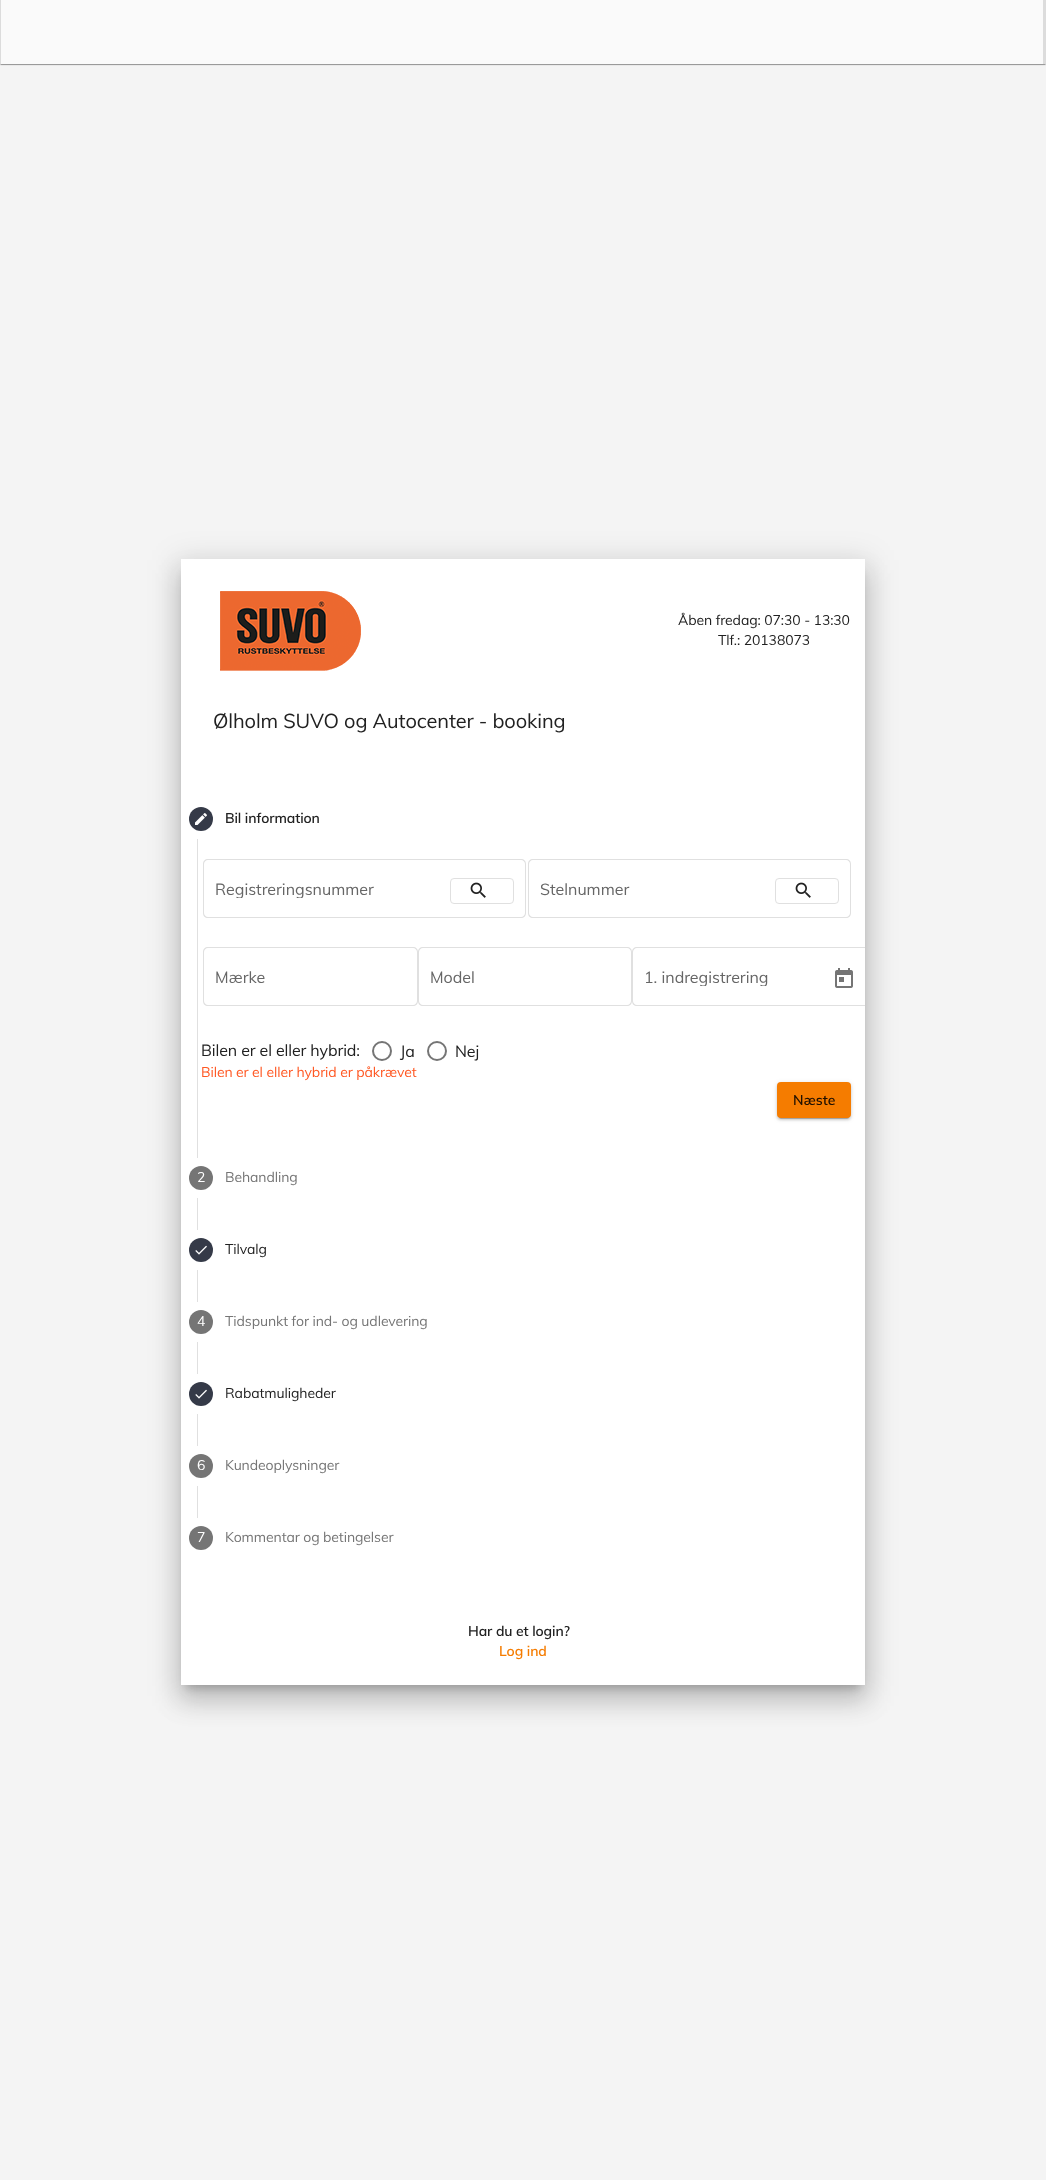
<?xml version="1.0" encoding="UTF-8"?>
<svg xmlns="http://www.w3.org/2000/svg" width="1046" height="2180">
    <defs>
        <clipPath id="clip1"><rect x="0" y="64" width="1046" height="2"/></clipPath>
        <filter id="blur1" x="-50%" y="-200%" width="200%" height="500%"><feGaussianBlur stdDeviation="1.5"/></filter>
        <clipPath id="clip2"><rect x="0" y="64" width="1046" height="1"/></clipPath>
        <filter id="blur2" x="-50%" y="-200%" width="200%" height="500%"><feGaussianBlur stdDeviation="0.5"/></filter>
        <clipPath id="clip3"><rect x="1" y="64" width="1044" height="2"/></clipPath>
        <filter id="blur3" x="-50%" y="-200%" width="200%" height="500%"><feGaussianBlur stdDeviation="15"/></filter>
        <filter id="blur4" x="-50%" y="-200%" width="200%" height="500%"><feGaussianBlur stdDeviation="12"/></filter>
        <filter id="blur5" x="-50%" y="-200%" width="200%" height="500%"><feGaussianBlur stdDeviation="5"/></filter>
        <clipPath id="clip4"><rect x="215" y="880" width="235" height="18"/></clipPath>
        <clipPath id="clip5"><rect x="197" y="855" width="668" height="287"/></clipPath>
        <clipPath id="clip6"><rect x="644" y="968" width="180" height="18"/></clipPath>
        <filter id="blur6" x="-50%" y="-200%" width="200%" height="500%"><feGaussianBlur stdDeviation="2.5"/></filter>
        <filter id="blur7" x="-50%" y="-200%" width="200%" height="500%"><feGaussianBlur stdDeviation="1"/></filter>
    </defs>
    <rect width="100%" height="100%" fill="#FAFAFA"/>
    <rect x="0" y="64" width="1046" height="2116" fill="#F4F4F4"/>
    <g clip-path="url(#clip1)">
        <rect x="0" y="1" width="1046" height="64" fill="#000000" fill-opacity="0.12" filter="url(#blur1)"/>
    </g>
    <g clip-path="url(#clip2)">
        <rect x="0" y="1" width="1046" height="64" fill="#000000" fill-opacity="0.14" filter="url(#blur2)"/>
    </g>
    <g clip-path="url(#clip3)">
        <rect x="1" y="3" width="1044" height="62" fill="#000000" fill-opacity="0.2" filter="url(#blur2)"/>
    </g>
    <rect x="0" y="0" width="1" height="64" fill="#DCDCDC"/>
    <rect x="1043" y="0" width="3" height="64" fill="#DCDCDC"/>
    <rect x="176" y="560" width="694" height="1136" fill="#000000" fill-opacity="0.12" filter="url(#blur3)"/>
    <rect x="179" y="573" width="688" height="1130" fill="#000000" fill-opacity="0.14" filter="url(#blur4)"/>
    <rect x="186" y="572" width="674" height="1116" fill="#000000" fill-opacity="0.2" filter="url(#blur5)"/>
    <rect x="181" y="559" width="684" height="1126" fill="#FFFFFF"/>
    <image x="220" y="591" width="141" height="80" href="img_01.png"/>
    <text x="678" y="625" font-family="Muli" font-size="14" letter-spacing="-0.1" fill="#212121">Åben fredag: 07:30 - 13:30</text>
    <text x="718" y="645" font-family="Muli" font-size="14" letter-spacing="-0.1" fill="#212121">Tlf.: 20138073</text>
    <text x="213" y="728" font-family="Muli" font-size="20" letter-spacing="-0.1" fill="#212121">Ølholm SUVO og Autocenter - booking</text>
    <circle cx="201" cy="819" r="12" fill="#353A48"/>
    <image x="195" y="813" width="12" height="12" href="img_02.png"/>
    <text x="225" y="823" font-family="Muli" font-size="14" font-weight="600" letter-spacing="-0.1" fill="#212121">Bil information</text>
    <rect x="197" y="839" width="1" height="319" fill="#E0E0E0"/>
    <path d="M 208 859 H 210 V 918 H 208 C 205 918 203 916 203 913 V 864 C 203 861 205 859 208 859 Z M 208 860 H 210 V 917 H 208 C 206 917 204 915 204 913 V 864 C 204 862 206 860 208 860 Z" fill="#E0E0E0" fill-rule="evenodd"/>
    <rect x="210" y="859" width="129" height="1" fill="#E0E0E0"/>
    <rect x="210" y="917" width="129" height="1" fill="#E0E0E0"/>
    <path d="M 339 859 H 521 C 524 859 526 861 526 864 V 913 C 526 916 524 918 521 918 H 339 Z M 339 860 H 521 C 523 860 525 862 525 864 V 913 C 525 915 523 917 521 917 H 339 Z" fill="#E0E0E0" fill-rule="evenodd"/>
    <g clip-path="url(#clip4)">
        <text x="215" y="895" font-family="Muli" font-size="16" fill="#666666">Registreringsnummer</text>
    </g>
    <rect x="450.5" y="878.5" width="63" height="25" rx="3.5" fill="none" stroke="#E0E0E0"/>
    <image x="470" y="882" width="16" height="16" href="img_03.png"/>
    <path d="M 533 859 H 535 V 918 H 533 C 530 918 528 916 528 913 V 864 C 528 861 530 859 533 859 Z M 533 860 H 535 V 917 H 533 C 531 917 529 915 529 913 V 864 C 529 862 531 860 533 860 Z" fill="#E0E0E0" fill-rule="evenodd"/>
    <rect x="535" y="859" width="77" height="1" fill="#E0E0E0"/>
    <rect x="535" y="917" width="77" height="1" fill="#E0E0E0"/>
    <path d="M 612 859 H 846 C 849 859 851 861 851 864 V 913 C 851 916 849 918 846 918 H 612 Z M 612 860 H 846 C 848 860 850 862 850 864 V 913 C 850 915 848 917 846 917 H 612 Z" fill="#E0E0E0" fill-rule="evenodd"/>
    <text x="540" y="895" font-family="Muli" font-size="16" fill="#666666">Stelnummer</text>
    <rect x="775.5" y="878.5" width="63" height="25" rx="3.5" fill="none" stroke="#E0E0E0"/>
    <image x="795" y="882" width="16" height="16" href="img_03.png"/>
    <path d="M 208 947 H 210 V 1006 H 208 C 205 1006 203 1004 203 1001 V 952 C 203 949 205 947 208 947 Z M 208 948 H 210 V 1005 H 208 C 206 1005 204 1003 204 1001 V 952 C 204 950 206 948 208 948 Z" fill="#E0E0E0" fill-rule="evenodd"/>
    <rect x="210" y="947" width="48" height="1" fill="#E0E0E0"/>
    <rect x="210" y="1005" width="48" height="1" fill="#E0E0E0"/>
    <path d="M 258 947 H 413 C 416 947 418 949 418 952 V 1001 C 418 1004 416 1006 413 1006 H 258 Z M 258 948 H 413 C 415 948 417 950 417 952 V 1001 C 417 1003 415 1005 413 1005 H 258 Z" fill="#E0E0E0" fill-rule="evenodd"/>
    <text x="215" y="983" font-family="Muli" font-size="16" fill="#666666">Mærke</text>
    <path d="M 423 947 H 425 V 1006 H 423 C 420 1006 418 1004 418 1001 V 952 C 418 949 420 947 423 947 Z M 423 948 H 425 V 1005 H 423 C 421 1005 419 1003 419 1001 V 952 C 419 950 421 948 423 948 Z" fill="#E0E0E0" fill-rule="evenodd"/>
    <rect x="425" y="947" width="43" height="1" fill="#E0E0E0"/>
    <rect x="425" y="1005" width="43" height="1" fill="#E0E0E0"/>
    <path d="M 468 947 H 627 C 630 947 632 949 632 952 V 1001 C 632 1004 630 1006 627 1006 H 468 Z M 468 948 H 627 C 629 948 631 950 631 952 V 1001 C 631 1003 629 1005 627 1005 H 468 Z" fill="#E0E0E0" fill-rule="evenodd"/>
    <text x="430" y="983" font-family="Muli" font-size="16" fill="#666666">Model</text>
    <path d="M 637 947 H 639 V 1006 H 637 C 634 1006 632 1004 632 1001 V 952 C 632 949 634 947 637 947 Z M 637 948 H 639 V 1005 H 637 C 635 1005 633 1003 633 1001 V 952 C 633 950 635 948 637 948 Z" fill="#E0E0E0" fill-rule="evenodd"/>
    <rect x="639" y="947" width="103" height="1" fill="#E0E0E0"/>
    <rect x="639" y="1005" width="103" height="1" fill="#E0E0E0"/>
    <g clip-path="url(#clip5)">
        <path d="M 742 947 H 871 C 874 947 876 949 876 952 V 1001 C 876 1004 874 1006 871 1006 H 742 Z M 742 948 H 871 C 873 948 875 950 875 952 V 1001 C 875 1003 873 1005 871 1005 H 742 Z" fill="#E0E0E0" fill-rule="evenodd"/>
    </g>
    <g clip-path="url(#clip6)">
        <text x="644" y="983" font-family="Muli" font-size="16" fill="#666666">1. indregistrering</text>
    </g>
    <image x="835" y="968" width="18" height="20" href="img_04.png"/>
    <text x="201" y="1056" font-family="Muli" font-size="16" letter-spacing="-0.1" fill="#212121">Bilen er el eller hybrid:</text>
    <circle cx="382" cy="1051" r="9" fill="none" stroke="#757575" stroke-width="2"/>
    <text x="400" y="1057" font-family="Muli" font-size="16" letter-spacing="-0.1" fill="#212121">Ja</text>
    <circle cx="437" cy="1051" r="9" fill="none" stroke="#757575" stroke-width="2"/>
    <text x="455" y="1057" font-family="Muli" font-size="16" letter-spacing="-0.1" fill="#212121">Nej</text>
    <text x="201" y="1077" font-family="Muli" font-size="14" letter-spacing="-0.1" fill="#FF5722">Bilen er el eller hybrid er påkrævet</text>
    <rect x="777" y="1083" width="74" height="36" rx="4" fill="#000000" fill-opacity="0.12" filter="url(#blur6)"/>
    <rect x="777" y="1084" width="74" height="36" rx="4" fill="#000000" fill-opacity="0.14" filter="url(#blur7)"/>
    <rect x="779" y="1087" width="70" height="32" rx="2" fill="#000000" fill-opacity="0.2" filter="url(#blur2)"/>
    <rect x="777" y="1082" width="74" height="36" rx="4" fill="#F57C00"/>
    <text x="793" y="1105" font-family="Muli" font-size="14" font-weight="600" fill="#201000">Næste</text>
    <circle cx="201" cy="1178" r="12" fill="#757575"/>
    <text x="197" y="1182" font-family="Muli" font-size="14" letter-spacing="-0.1" fill="#FFFFFF">2</text>
    <text x="225" y="1182" font-family="Muli" font-size="14" letter-spacing="-0.1" fill="#757575">Behandling</text>
    <rect x="197" y="1198" width="1" height="32" fill="#E0E0E0"/>
    <circle cx="201" cy="1250" r="12" fill="#353A48"/>
    <image x="195" y="1245" width="12" height="10" href="img_05.png"/>
    <text x="225" y="1254" font-family="Muli" font-size="14" letter-spacing="-0.1" fill="#212121">Tilvalg</text>
    <rect x="197" y="1270" width="1" height="32" fill="#E0E0E0"/>
    <circle cx="201" cy="1322" r="12" fill="#757575"/>
    <text x="197" y="1326" font-family="Muli" font-size="14" letter-spacing="-0.1" fill="#FFFFFF">4</text>
    <text x="225" y="1326" font-family="Muli" font-size="14" letter-spacing="-0.1" fill="#757575">Tidspunkt for ind- og udlevering</text>
    <rect x="197" y="1342" width="1" height="32" fill="#E0E0E0"/>
    <circle cx="201" cy="1394" r="12" fill="#353A48"/>
    <image x="195" y="1389" width="12" height="10" href="img_05.png"/>
    <text x="225" y="1398" font-family="Muli" font-size="14" letter-spacing="-0.1" fill="#212121">Rabatmuligheder</text>
    <rect x="197" y="1414" width="1" height="32" fill="#E0E0E0"/>
    <circle cx="201" cy="1466" r="12" fill="#757575"/>
    <text x="197" y="1470" font-family="Muli" font-size="14" letter-spacing="-0.1" fill="#FFFFFF">6</text>
    <text x="225" y="1470" font-family="Muli" font-size="14" letter-spacing="-0.1" fill="#757575">Kundeoplysninger</text>
    <rect x="197" y="1486" width="1" height="32" fill="#E0E0E0"/>
    <circle cx="201" cy="1538" r="12" fill="#757575"/>
    <text x="197" y="1542" font-family="Muli" font-size="14" letter-spacing="-0.1" fill="#FFFFFF">7</text>
    <text x="225" y="1542" font-family="Muli" font-size="14" letter-spacing="-0.1" fill="#757575">Kommentar og betingelser</text>
    <text x="468" y="1636" font-family="Muli" font-size="14" font-weight="600" letter-spacing="-0.1" fill="#212121">Har du et login?</text>
    <text x="499" y="1656" font-family="Muli" font-size="14" font-weight="600" letter-spacing="-0.1" fill="#F57C00">Log ind</text>
</svg>
